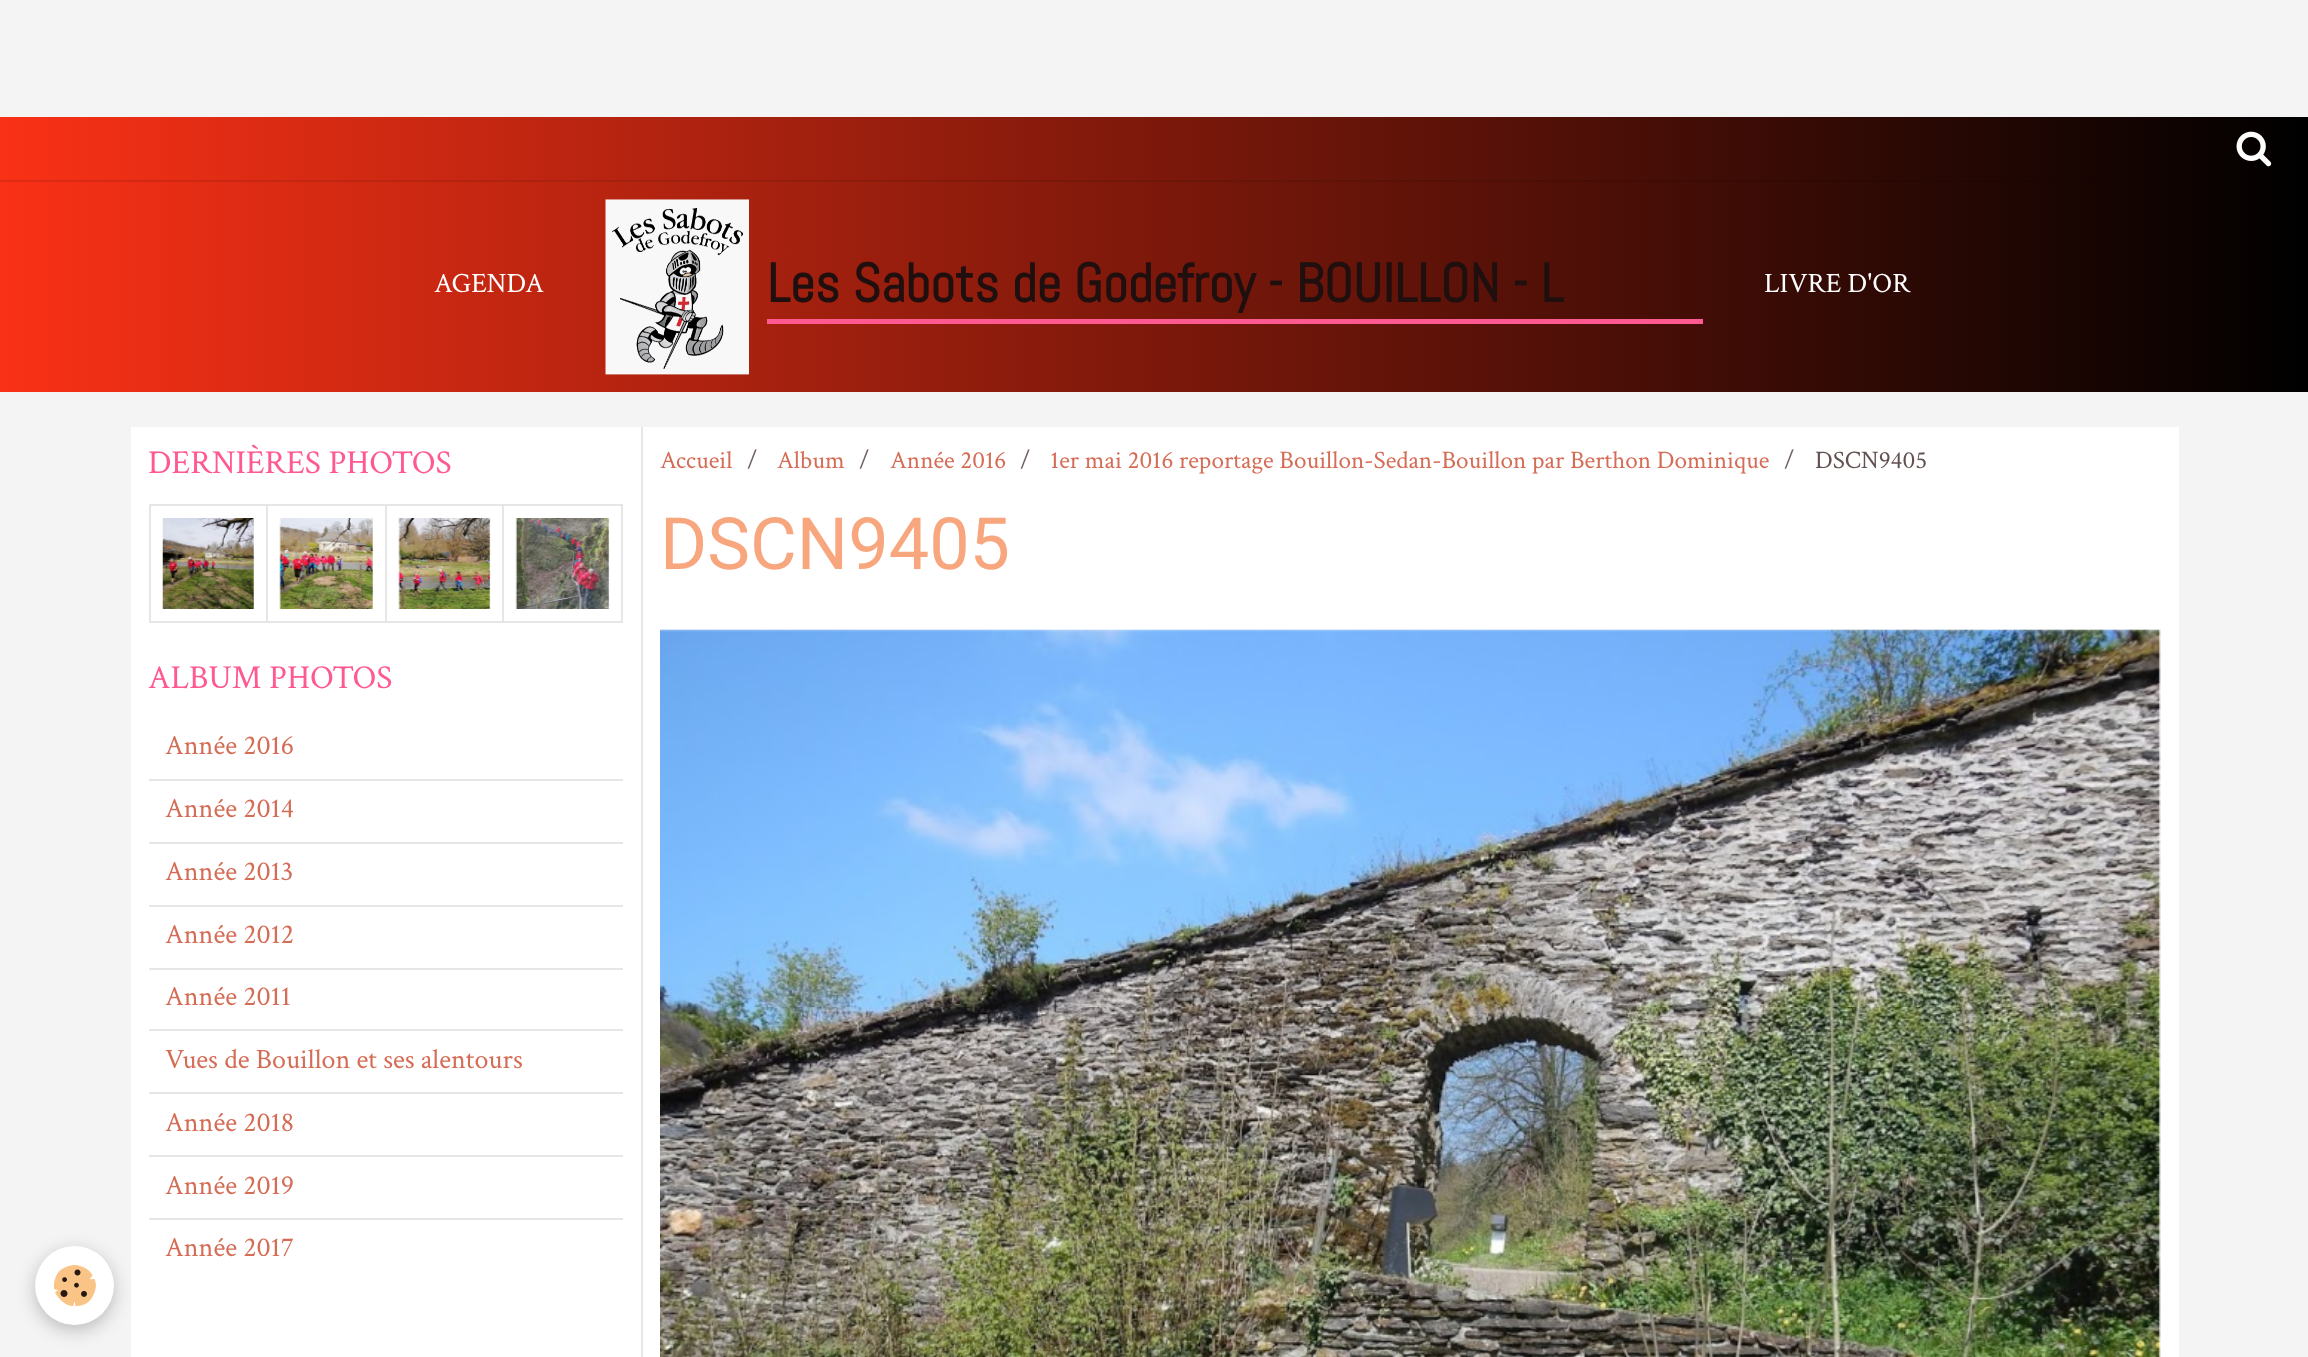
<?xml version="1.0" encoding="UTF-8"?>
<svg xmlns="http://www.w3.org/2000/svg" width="2308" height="1357">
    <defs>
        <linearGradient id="g1" gradientUnits="userSpaceOnUse" x1="0" y1="255" x2="2308" y2="255"><stop offset="0" stop-color="#F93116"/><stop offset="1" stop-color="#000000"/></linearGradient>
        <linearGradient id="g2" gradientUnits="userSpaceOnUse" x1="0" y1="255" x2="2308" y2="255"><stop offset="0" stop-color="#E02C14"/><stop offset="1" stop-color="#000000"/></linearGradient>
        <filter id="blur1" x="-50%" y="-200%" width="200%" height="500%"><feGaussianBlur stdDeviation="9"/></filter>
    </defs>
    <rect width="100%" height="100%" fill="#F4F4F4"/>
    <rect x="0" y="117" width="2308" height="275" fill="url(#g1)"/>
    <rect x="0" y="180" width="2118" height="2" fill="url(#g2)"/>
    <image x="2236" y="131" width="36" height="36" href="img_01.png"/>
    <text x="434" y="292" font-family="Crimson Text" font-size="28" fill="#FFFFFF">AGENDA</text>
    <image x="605" y="199" width="144" height="176" href="img_02.png"/>
    <rect x="767" y="319" width="936" height="5" fill="#FF5992"/>
    <text x="767" y="302" font-family="Abel" font-size="54.6" font-weight="700" fill="#200F0F">Les Sabots de Godefroy - BOUILLON - L</text>
    <text x="1764" y="292" font-family="Crimson Text" font-size="28" fill="#FFFFFF">LIVRE D'OR</text>
    <rect x="131" y="427" width="510" height="930" fill="#FFFFFF"/>
    <rect x="641" y="427" width="2" height="930" fill="#E6E6E6"/>
    <text x="148" y="473" font-family="Crimson Text" font-size="33.5" fill="#FF5992">DERNIÈRES PHOTOS</text>
    <rect x="149" y="504" width="2" height="119" fill="#E6E6E6"/>
    <rect x="151" y="504" width="472" height="2" fill="#E6E6E6"/>
    <rect x="266" y="504" width="2" height="119" fill="#E6E6E6"/>
    <rect x="151" y="621" width="117" height="2" fill="#E6E6E6"/>
    <image x="162" y="518" width="92" height="91" href="img_03.png"/>
    <rect x="385" y="504" width="2" height="119" fill="#E6E6E6"/>
    <rect x="268" y="621" width="119" height="2" fill="#E6E6E6"/>
    <image x="279" y="518" width="94" height="91" href="img_04.png"/>
    <rect x="502" y="504" width="2" height="119" fill="#E6E6E6"/>
    <rect x="387" y="621" width="117" height="2" fill="#E6E6E6"/>
    <image x="398" y="518" width="93" height="91" href="img_05.png"/>
    <rect x="621" y="504" width="2" height="119" fill="#E6E6E6"/>
    <rect x="504" y="621" width="119" height="2" fill="#E6E6E6"/>
    <image x="515" y="518" width="95" height="91" href="img_06.png"/>
    <text x="148" y="688" font-family="Crimson Text" font-size="33.5" fill="#FF5992">ALBUM PHOTOS</text>
    <rect x="149" y="779" width="474" height="2" fill="#E6E6E6"/>
    <text x="165" y="754" font-family="Crimson Text" font-size="28" fill="#D56C55">Année 2016</text>
    <rect x="149" y="842" width="474" height="2" fill="#E6E6E6"/>
    <text x="165" y="817" font-family="Crimson Text" font-size="28" fill="#D56C55">Année 2014</text>
    <rect x="149" y="905" width="474" height="2" fill="#E6E6E6"/>
    <text x="165" y="880" font-family="Crimson Text" font-size="28" fill="#D56C55">Année 2013</text>
    <rect x="149" y="968" width="474" height="2" fill="#E6E6E6"/>
    <text x="165" y="943" font-family="Crimson Text" font-size="28" fill="#D56C55">Année 2012</text>
    <rect x="149" y="1029" width="474" height="2" fill="#E6E6E6"/>
    <text x="165" y="1005" font-family="Crimson Text" font-size="28" fill="#D56C55">Année 2011</text>
    <rect x="149" y="1092" width="474" height="2" fill="#E6E6E6"/>
    <text x="165" y="1068" font-family="Crimson Text" font-size="28" fill="#D56C55">Vues de Bouillon et ses alentours</text>
    <rect x="149" y="1155" width="474" height="2" fill="#E6E6E6"/>
    <text x="165" y="1131" font-family="Crimson Text" font-size="28" fill="#D56C55">Année 2018</text>
    <rect x="149" y="1218" width="474" height="2" fill="#E6E6E6"/>
    <text x="165" y="1194" font-family="Crimson Text" font-size="28" fill="#D56C55">Année 2019</text>
    <text x="165" y="1256" font-family="Crimson Text" font-size="28" fill="#D56C55">Année 2017</text>
    <rect x="643" y="427" width="1536" height="930" fill="#FFFFFF"/>
    <text x="660" y="468" font-family="Crimson Text" font-size="25.2" fill="#D56C55">Accueil</text>
    <text x="747" y="468" font-family="Crimson Text" font-size="25.2" fill="#736262">/</text>
    <text x="777" y="468" font-family="Crimson Text" font-size="25.2" fill="#D56C55">Album</text>
    <text x="859" y="468" font-family="Crimson Text" font-size="25.2" fill="#736262">/</text>
    <text x="890" y="468" font-family="Crimson Text" font-size="25.2" fill="#D56C55">Année 2016</text>
    <text x="1020" y="468" font-family="Crimson Text" font-size="25.2" fill="#736262">/</text>
    <text x="1050" y="468" font-family="Crimson Text" font-size="25.2" fill="#D56C55">1er mai 2016 reportage Bouillon-Sedan-Bouillon par Berthon Dominique</text>
    <text x="1784" y="468" font-family="Crimson Text" font-size="25.2" fill="#736262">/</text>
    <text x="1815" y="468" font-family="Crimson Text" font-size="25.2" fill="#635050">DSCN9405</text>
    <text x="660" y="569" font-family="Roboto" font-size="72" fill="#F8A67E">DSCN9405</text>
    <image x="660" y="629" width="1501" height="728" href="img_07.png"/>
    <rect x="35" y="1251" width="79" height="79" rx="39.5" fill="#000000" fill-opacity="0.24" filter="url(#blur1)"/>
    <circle cx="74.5" cy="1285.5" r="39.5" fill="#FFFFFF"/>
    <image x="53" y="1265" width="43" height="42" href="img_08.png"/>
</svg>
